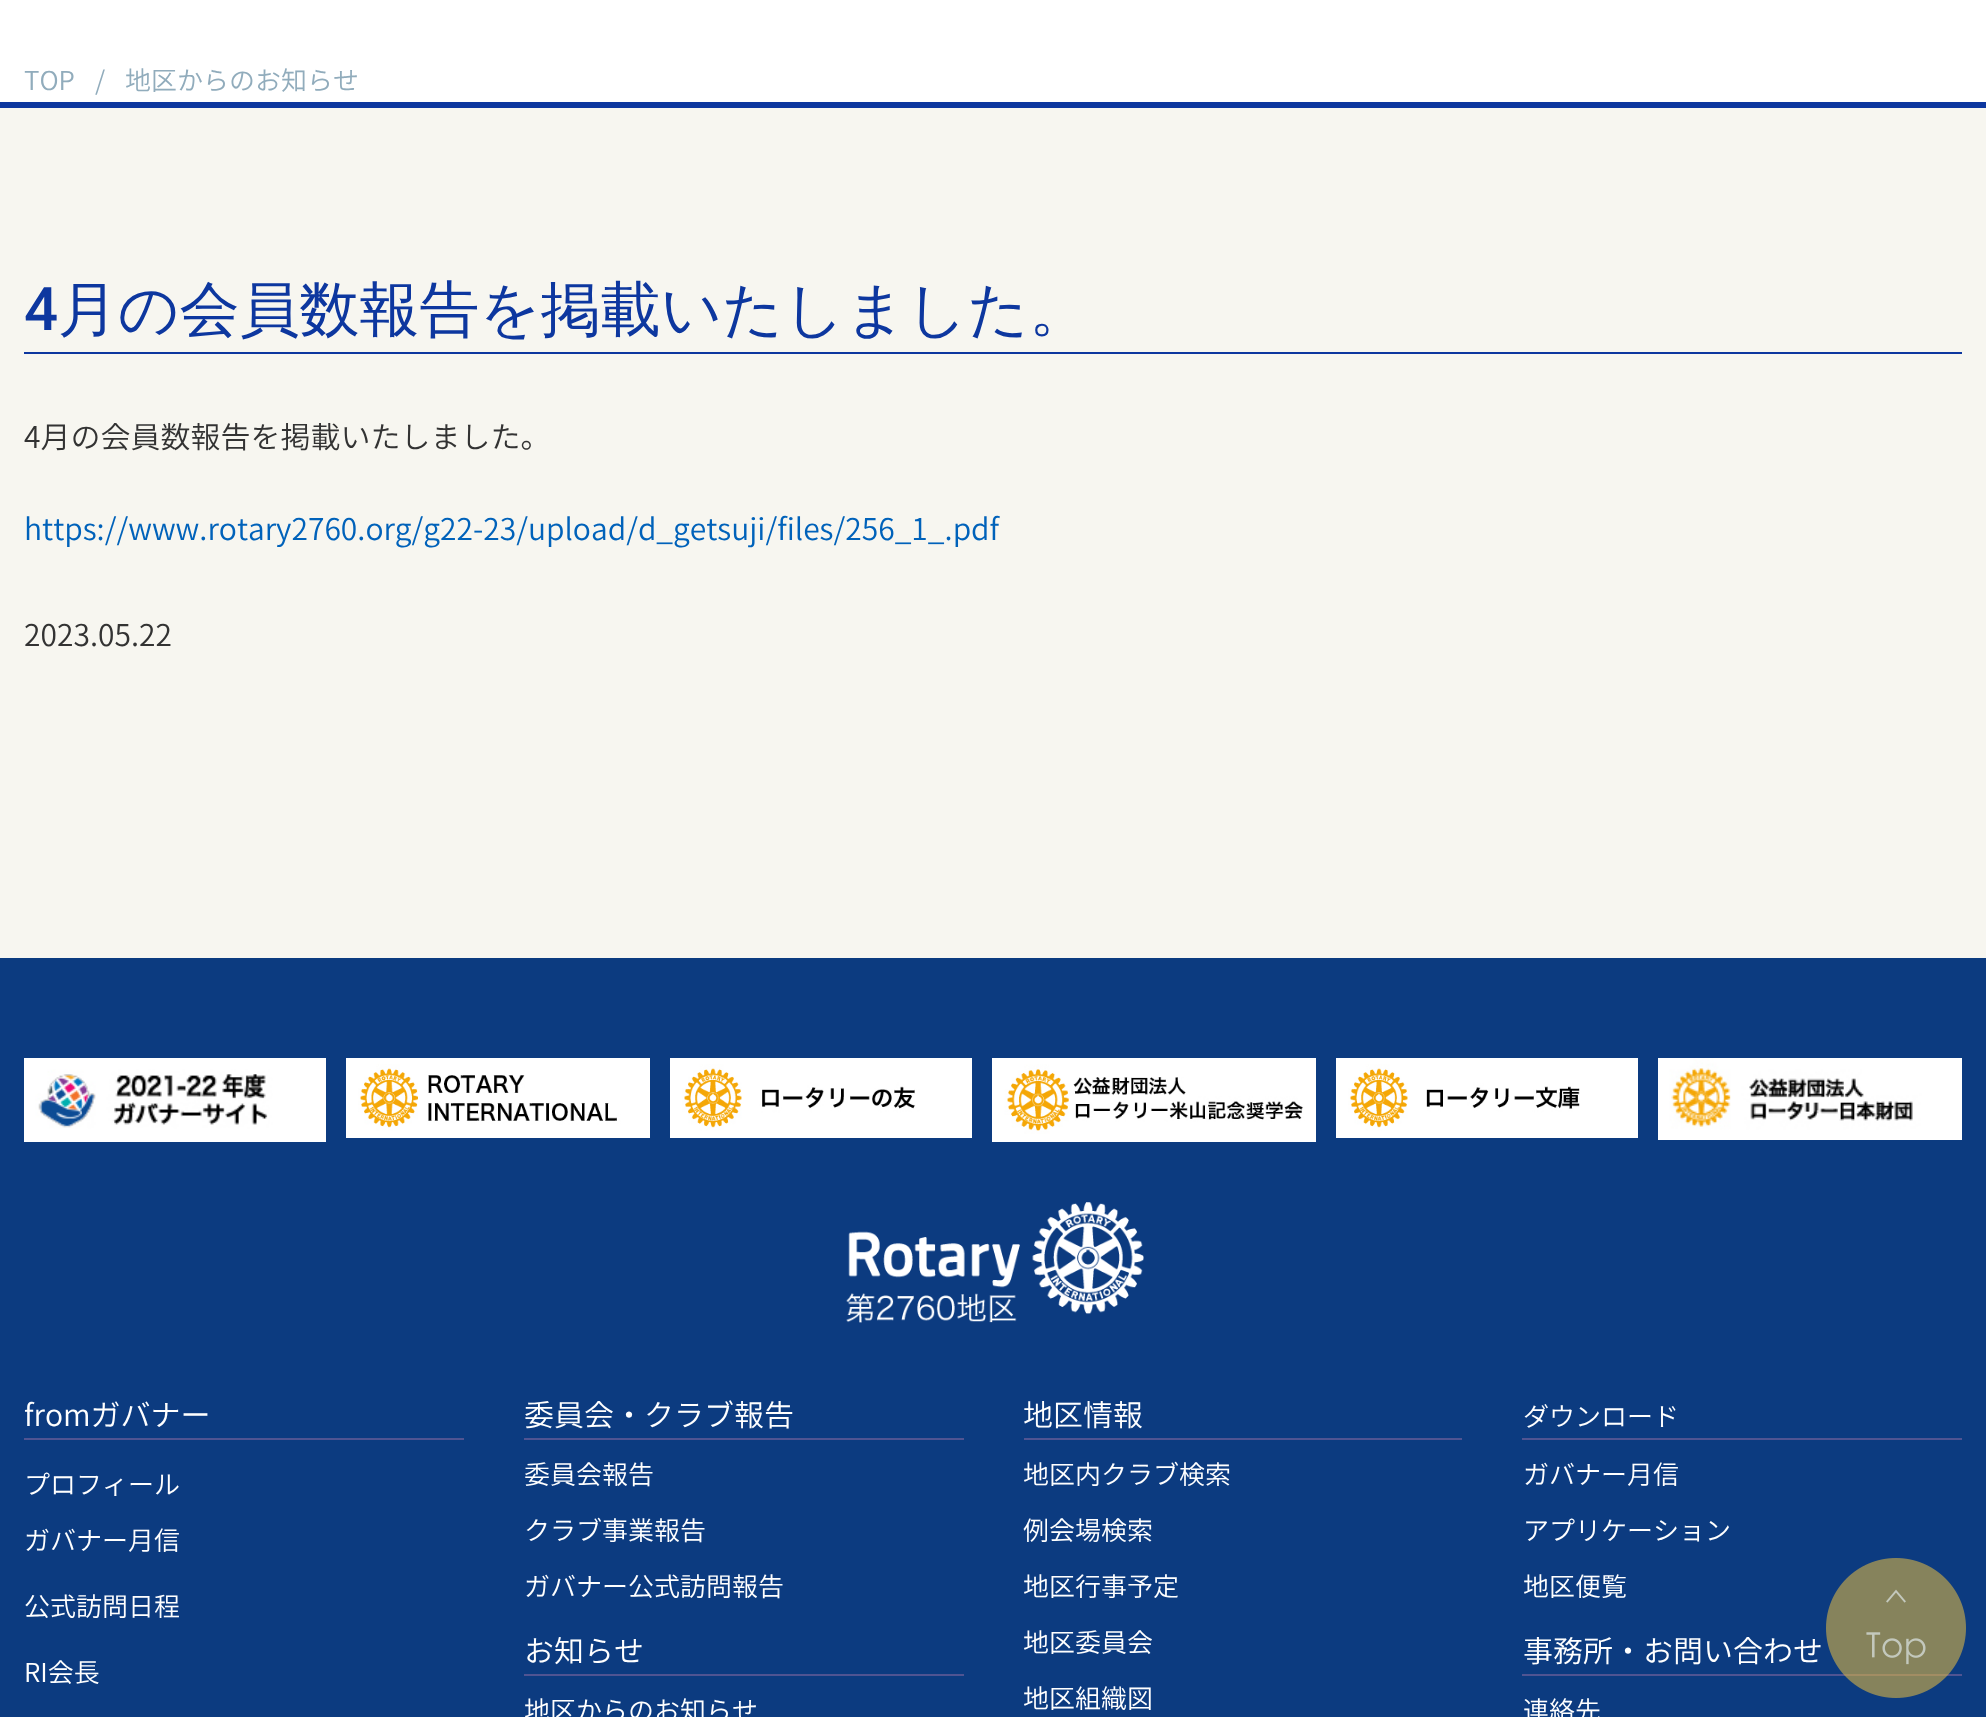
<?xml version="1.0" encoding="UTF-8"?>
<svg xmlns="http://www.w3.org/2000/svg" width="1986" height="1717">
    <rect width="100%" height="100%" fill="#F7F6F0"/>
    <rect x="0" y="102" width="1986" height="6" fill="#0D379F"/>
    <rect x="0" y="0" width="1986" height="102" fill="#FFFFFF"/>
    <text x="24" y="90" font-family="Noto Sans CJK JP" font-size="26" font-weight="300" fill="#91ACBC">TOP</text>
    <text x="95" y="90" font-family="Noto Sans CJK JP" font-size="26" font-weight="300" fill="#91ACBC">/</text>
    <text x="125" y="90" font-family="Noto Sans CJK JP" font-size="26" font-weight="300" fill="#91ACBC">地区からのお知らせ</text>
    <rect x="24" y="352" width="1938" height="2" fill="#0D379F"/>
    <text x="24" y="330" font-family="Roboto" font-size="60" font-weight="500" fill="#0D379F">4</text>
    <text x="58" y="330" font-family="WenQuanYi Zen Hei" font-size="60" font-weight="500" fill="#0D379F">月の会員数報告を掲載いたしました。</text>
    <text x="24" y="448" font-family="Noto Sans CJK JP" font-size="30" font-weight="300" fill="#333333">4月の会員数報告を掲載いたしました。</text>
    <text x="24" y="540" font-family="Noto Sans CJK JP" font-size="30" font-weight="300" fill="#0062BA">https://www.rotary2760.org/g22-23/upload/d_getsuji/files/256_1_.pdf</text>
    <text x="24" y="646" font-family="Noto Sans CJK JP" font-size="30" font-weight="300" fill="#333333">2023.05.22</text>
    <rect x="0" y="958" width="1986" height="759" fill="#0C3B80"/>
    <image x="24" y="1058" width="302" height="84" href="img_01.png"/>
    <image x="346" y="1058" width="304" height="80" href="img_02.png"/>
    <image x="670" y="1058" width="302" height="80" href="img_03.png"/>
    <image x="992" y="1058" width="324" height="84" href="img_04.png"/>
    <image x="1336" y="1058" width="302" height="80" href="img_05.png"/>
    <image x="1658" y="1058" width="304" height="82" href="img_06.png"/>
    <image x="846" y="1202" width="298" height="121" href="img_07.png"/>
    <rect x="24" y="1438" width="440" height="2" fill="#505492"/>
    <text x="24" y="1426" font-family="Noto Sans CJK JP" font-size="30" font-weight="300" fill="#FFFFFF">fromガバナー</text>
    <text x="24" y="1494" font-family="Noto Sans CJK JP" font-size="26" font-weight="300" fill="#FFFFFF">プロフィール</text>
    <text x="24" y="1550" font-family="Noto Sans CJK JP" font-size="26" font-weight="300" fill="#FFFFFF">ガバナー月信</text>
    <text x="24" y="1616" font-family="Noto Sans CJK JP" font-size="26" font-weight="300" fill="#FFFFFF">公式訪問日程</text>
    <text x="24" y="1682" font-family="Noto Sans CJK JP" font-size="26" font-weight="300" fill="#FFFFFF">RI会長</text>
    <rect x="524" y="1438" width="440" height="2" fill="#505492"/>
    <text x="524" y="1426" font-family="Noto Sans CJK JP" font-size="30" font-weight="300" fill="#FFFFFF">委員会・クラブ報告</text>
    <text x="524" y="1484" font-family="Noto Sans CJK JP" font-size="26" font-weight="300" fill="#FFFFFF">委員会報告</text>
    <text x="524" y="1540" font-family="Noto Sans CJK JP" font-size="26" font-weight="300" fill="#FFFFFF">クラブ事業報告</text>
    <text x="524" y="1596" font-family="Noto Sans CJK JP" font-size="26" font-weight="300" fill="#FFFFFF">ガバナー公式訪問報告</text>
    <rect x="524" y="1674" width="440" height="2" fill="#505492"/>
    <text x="524" y="1662" font-family="Noto Sans CJK JP" font-size="30" font-weight="300" fill="#FFFFFF">お知らせ</text>
    <text x="524" y="1720" font-family="Noto Sans CJK JP" font-size="26" font-weight="300" fill="#FFFFFF">地区からのお知らせ</text>
    <rect x="1024" y="1438" width="438" height="2" fill="#505492"/>
    <text x="1023" y="1426" font-family="Noto Sans CJK JP" font-size="30" font-weight="300" fill="#FFFFFF">地区情報</text>
    <text x="1023" y="1484" font-family="Noto Sans CJK JP" font-size="26" font-weight="300" fill="#FFFFFF">地区内クラブ検索</text>
    <text x="1023" y="1540" font-family="Noto Sans CJK JP" font-size="26" font-weight="300" fill="#FFFFFF">例会場検索</text>
    <text x="1023" y="1596" font-family="Noto Sans CJK JP" font-size="26" font-weight="300" fill="#FFFFFF">地区行事予定</text>
    <text x="1023" y="1652" font-family="Noto Sans CJK JP" font-size="26" font-weight="300" fill="#FFFFFF">地区委員会</text>
    <text x="1023" y="1708" font-family="Noto Sans CJK JP" font-size="26" font-weight="300" fill="#FFFFFF">地区組織図</text>
    <rect x="1522" y="1438" width="440" height="2" fill="#505492"/>
    <text x="1523" y="1426" font-family="Noto Sans CJK JP" font-size="26" font-weight="300" fill="#FFFFFF">ダウンロード</text>
    <text x="1523" y="1484" font-family="Noto Sans CJK JP" font-size="26" font-weight="300" fill="#FFFFFF">ガバナー月信</text>
    <text x="1523" y="1540" font-family="Noto Sans CJK JP" font-size="26" font-weight="300" fill="#FFFFFF">アプリケーション</text>
    <text x="1523" y="1596" font-family="Noto Sans CJK JP" font-size="26" font-weight="300" fill="#FFFFFF">地区便覧</text>
    <rect x="1522" y="1674" width="440" height="2" fill="#505492"/>
    <text x="1523" y="1662" font-family="Noto Sans CJK JP" font-size="30" font-weight="300" fill="#FFFFFF">事務所・お問い合わせ</text>
    <text x="1523" y="1720" font-family="Noto Sans CJK JP" font-size="26" font-weight="300" fill="#FFFFFF">連絡先</text>
    <image x="1826" y="1558" width="140" height="140" href="img_08.png"/>
</svg>
